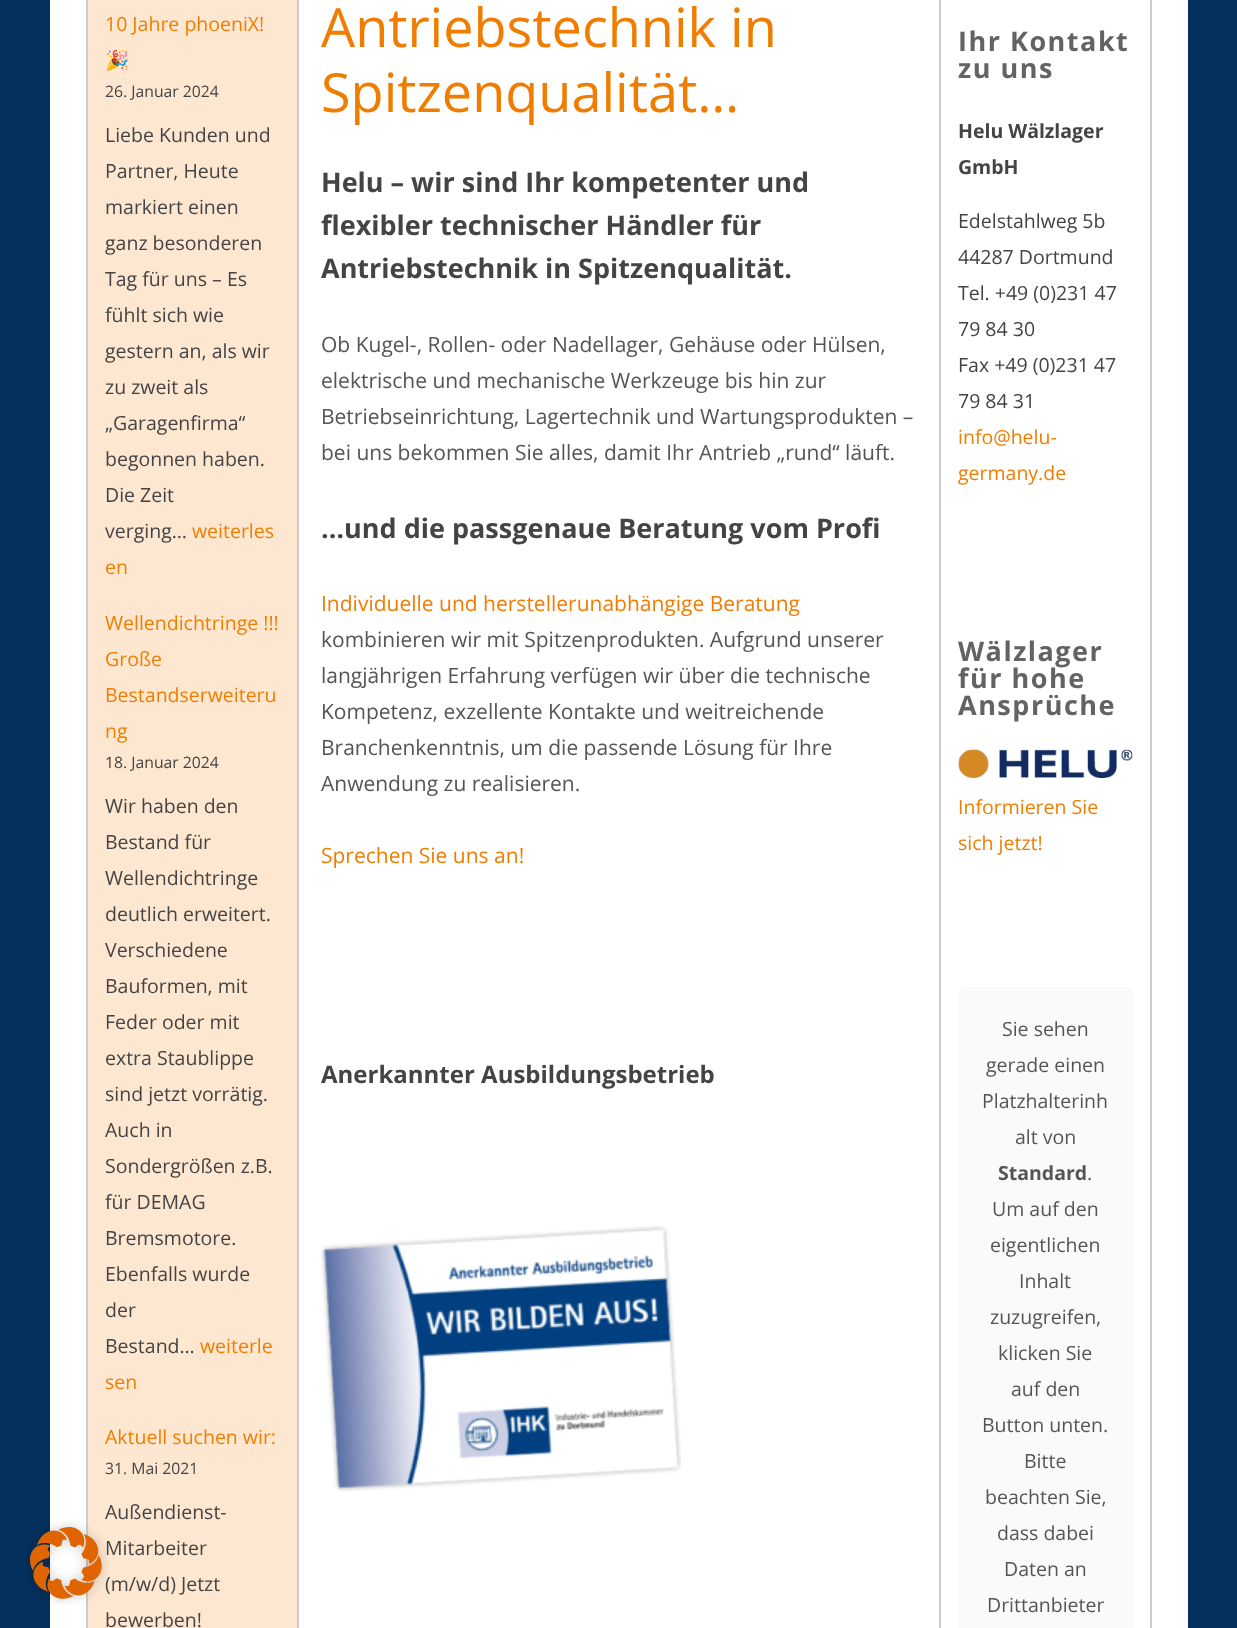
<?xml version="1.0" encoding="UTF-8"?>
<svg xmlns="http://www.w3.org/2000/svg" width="1237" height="1628">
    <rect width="100%" height="100%" fill="#04305D"/>
    <rect x="50" y="0" width="1138" height="1628" fill="#FFFFFF"/>
    <rect x="87" y="-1" width="211" height="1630" fill="#FEE7D1" stroke="#CCCCCE" stroke-width="2"/>
    <text font-family="Open Sans" font-size="19.5" fill="#444444">
        <tspan x="105" y="1555">Mitarbeiter</tspan>
        <tspan x="105" y="1591">(m/w/d) Jetzt</tspan>
    </text>
    <image x="26" y="1521" width="82" height="84" href="img_01.png"/>
    <text x="105" y="31" font-family="Open Sans" font-size="19.5" fill="#F07D00">10 Jahre phoeniX!</text>
    <text x="105" y="67" font-family="Noto Color Emoji" font-size="19.5" fill="#F07D00">🎉</text>
    <text x="105" y="97" font-family="Open Sans" font-size="15.75" fill="#444444">26. Januar 2024</text>
    <text font-family="Open Sans" font-size="19.5" fill="#444444">
        <tspan x="105" y="142">Liebe Kunden und</tspan>
        <tspan x="105" y="178">Partner, Heute</tspan>
        <tspan x="105" y="214">markiert einen</tspan>
        <tspan x="105" y="250">ganz besonderen</tspan>
        <tspan x="105" y="286">Tag für uns – Es</tspan>
        <tspan x="105" y="322">fühlt sich wie</tspan>
        <tspan x="105" y="358">gestern an, als wir</tspan>
        <tspan x="105" y="394">zu zweit als</tspan>
        <tspan x="105" y="430">„Garagenfirma“</tspan>
        <tspan x="105" y="466">begonnen haben.</tspan>
        <tspan x="105" y="502">Die Zeit</tspan>
        <tspan x="105" y="538">verging…</tspan>
    </text>
    <text x="192" y="538" font-family="Open Sans" font-size="19.5" fill="#F07D00">weiterles</text>
    <text x="105" y="574" font-family="Open Sans" font-size="19.5" fill="#F07D00">en</text>
    <text font-family="Open Sans" font-size="19.5" fill="#F07D00">
        <tspan x="105" y="630">Wellendichtringe !!!</tspan>
        <tspan x="105" y="666">Große</tspan>
        <tspan x="105" y="702">Bestandserweiteru</tspan>
        <tspan x="105" y="738">ng</tspan>
    </text>
    <text x="105" y="768" font-family="Open Sans" font-size="15.75" fill="#444444">18. Januar 2024</text>
    <text font-family="Open Sans" font-size="19.5" fill="#444444">
        <tspan x="105" y="813">Wir haben den</tspan>
        <tspan x="105" y="849">Bestand für</tspan>
        <tspan x="105" y="885">Wellendichtringe</tspan>
        <tspan x="105" y="921">deutlich erweitert.</tspan>
        <tspan x="105" y="957">Verschiedene</tspan>
        <tspan x="105" y="993">Bauformen, mit</tspan>
        <tspan x="105" y="1029">Feder oder mit</tspan>
        <tspan x="105" y="1065">extra Staublippe</tspan>
        <tspan x="105" y="1101">sind jetzt vorrätig.</tspan>
        <tspan x="105" y="1137">Auch in</tspan>
        <tspan x="105" y="1173">Sondergrößen z.B.</tspan>
        <tspan x="105" y="1209">für DEMAG</tspan>
        <tspan x="105" y="1245">Bremsmotore.</tspan>
        <tspan x="105" y="1281">Ebenfalls wurde</tspan>
        <tspan x="105" y="1317">der</tspan>
        <tspan x="105" y="1353">Bestand…</tspan>
    </text>
    <text x="200" y="1353" font-family="Open Sans" font-size="19.5" fill="#F07D00">weiterle</text>
    <text x="105" y="1389" font-family="Open Sans" font-size="19.5" fill="#F07D00">sen</text>
    <text x="105" y="1444" font-family="Open Sans" font-size="19.5" fill="#F07D00">Aktuell suchen wir:</text>
    <text x="105" y="1474" font-family="Open Sans" font-size="15.75" fill="#444444">31. Mai 2021</text>
    <text x="105" y="1519" font-family="Open Sans" font-size="19.5" fill="#444444">Außendienst-</text>
    <text x="105" y="1627" font-family="Open Sans" font-size="19.5" fill="#444444">bewerben!</text>
    <text font-family="Open Sans" font-size="54" fill="#F07D00">
        <tspan x="321" y="47">Antriebstechnik in</tspan>
        <tspan x="321" y="112">Spitzenqualität…</tspan>
    </text>
    <text font-family="Open Sans" font-size="27" font-weight="700" fill="#444444">
        <tspan x="321" y="192">Helu – wir sind Ihr kompetenter und</tspan>
        <tspan x="321" y="235">flexibler technischer Händler für</tspan>
        <tspan x="321" y="278">Antriebstechnik in Spitzenqualität.</tspan>
    </text>
    <text font-family="Open Sans" font-size="21" fill="#555555">
        <tspan x="321" y="352">Ob Kugel-, Rollen- oder Nadellager, Gehäuse oder Hülsen,</tspan>
        <tspan x="321" y="388">elektrische und mechanische Werkzeuge bis hin zur</tspan>
        <tspan x="321" y="424">Betriebseinrichtung, Lagertechnik und Wartungsprodukten –</tspan>
        <tspan x="321" y="460">bei uns bekommen Sie alles, damit Ihr Antrieb „rund“ läuft.</tspan>
    </text>
    <text x="321" y="538" font-family="Open Sans" font-size="27" font-weight="700" fill="#444444">…und die passgenaue Beratung vom Profi</text>
    <text x="321" y="611" font-family="Open Sans" font-size="21" fill="#F07D00">Individuelle und herstellerunabhängige Beratung</text>
    <text font-family="Open Sans" font-size="21" fill="#555555">
        <tspan x="321" y="647">kombinieren wir mit Spitzenprodukten. Aufgrund unserer</tspan>
        <tspan x="321" y="683">langjährigen Erfahrung verfügen wir über die technische</tspan>
        <tspan x="321" y="719">Kompetenz, exzellente Kontakte und weitreichende</tspan>
        <tspan x="321" y="755">Branchenkenntnis, um die passende Lösung für Ihre</tspan>
        <tspan x="321" y="791">Anwendung zu realisieren.</tspan>
    </text>
    <text x="321" y="863" font-family="Open Sans" font-size="21" fill="#F07D00">Sprechen Sie uns an!</text>
    <text x="321" y="1083" font-family="Open Sans" font-size="24" font-weight="700" fill="#444444">Anerkannter Ausbildungsbetrieb</text>
    <image x="321" y="1226" width="360" height="266" href="img_02.png"/>
    <rect x="940" y="-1" width="211" height="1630" fill="none" stroke="#CCCCCE" stroke-width="2"/>
    <text font-family="Open Sans" font-size="27" font-weight="700" letter-spacing="1.5" fill="#636363">
        <tspan x="958" y="51">Ihr Kontakt</tspan>
        <tspan x="958" y="78">zu uns</tspan>
    </text>
    <text font-family="Open Sans" font-size="19.5" font-weight="700" fill="#444444">
        <tspan x="958" y="138">Helu Wälzlager</tspan>
        <tspan x="958" y="174">GmbH</tspan>
    </text>
    <text font-family="Open Sans" font-size="19.5" fill="#444444">
        <tspan x="958" y="228">Edelstahlweg 5b</tspan>
        <tspan x="958" y="264">44287 Dortmund</tspan>
        <tspan x="958" y="300">Tel. +49 (0)231 47</tspan>
        <tspan x="958" y="336">79 84 30</tspan>
        <tspan x="958" y="372">Fax +49 (0)231 47</tspan>
        <tspan x="958" y="408">79 84 31</tspan>
    </text>
    <text font-family="Open Sans" font-size="19.5" fill="#F07D00">
        <tspan x="958" y="444">info@helu-</tspan>
        <tspan x="958" y="480">germany.de</tspan>
    </text>
    <text font-family="Open Sans" font-size="27" font-weight="700" letter-spacing="1.5" fill="#636363">
        <tspan x="958" y="661">Wälzlager</tspan>
        <tspan x="958" y="688">für hohe</tspan>
        <tspan x="958" y="715">Ansprüche</tspan>
    </text>
    <image x="958" y="749" width="175" height="29" href="img_03.png"/>
    <text font-family="Open Sans" font-size="19.5" fill="#F07D00">
        <tspan x="958" y="814">Informieren Sie</tspan>
        <tspan x="958" y="850">sich jetzt!</tspan>
    </text>
    <rect x="959" y="987" width="174" height="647" rx="6" fill="#FAFAFA"/>
    <text x="1002" y="1036" font-family="Open Sans" font-size="19.5" fill="#555555">Sie sehen</text>
    <text x="986" y="1072" font-family="Open Sans" font-size="19.5" fill="#555555">gerade einen</text>
    <text x="982" y="1108" font-family="Open Sans" font-size="19.5" fill="#555555">Platzhalterinh</text>
    <text x="1015" y="1144" font-family="Open Sans" font-size="19.5" fill="#555555">alt von</text>
    <text x="998" y="1180" font-family="Open Sans" font-size="19.5" font-weight="700" fill="#555555">Standard</text>
    <text x="1087" y="1180" font-family="Open Sans" font-size="19.5" fill="#555555">.</text>
    <text x="992" y="1216" font-family="Open Sans" font-size="19.5" fill="#555555">Um auf den</text>
    <text x="990" y="1252" font-family="Open Sans" font-size="19.5" fill="#555555">eigentlichen</text>
    <text x="1019" y="1288" font-family="Open Sans" font-size="19.5" fill="#555555">Inhalt</text>
    <text x="990" y="1324" font-family="Open Sans" font-size="19.5" fill="#555555">zuzugreifen,</text>
    <text x="998" y="1360" font-family="Open Sans" font-size="19.5" fill="#555555">klicken Sie</text>
    <text x="1011" y="1396" font-family="Open Sans" font-size="19.5" fill="#555555">auf den</text>
    <text x="982" y="1432" font-family="Open Sans" font-size="19.5" fill="#555555">Button unten.</text>
    <text x="1024" y="1468" font-family="Open Sans" font-size="19.5" fill="#555555">Bitte</text>
    <text x="985" y="1504" font-family="Open Sans" font-size="19.5" fill="#555555">beachten Sie,</text>
    <text x="997" y="1540" font-family="Open Sans" font-size="19.5" fill="#555555">dass dabei</text>
    <text x="1004" y="1576" font-family="Open Sans" font-size="19.5" fill="#555555">Daten an</text>
    <text x="987" y="1612" font-family="Open Sans" font-size="19.5" fill="#555555">Drittanbieter</text>
</svg>
